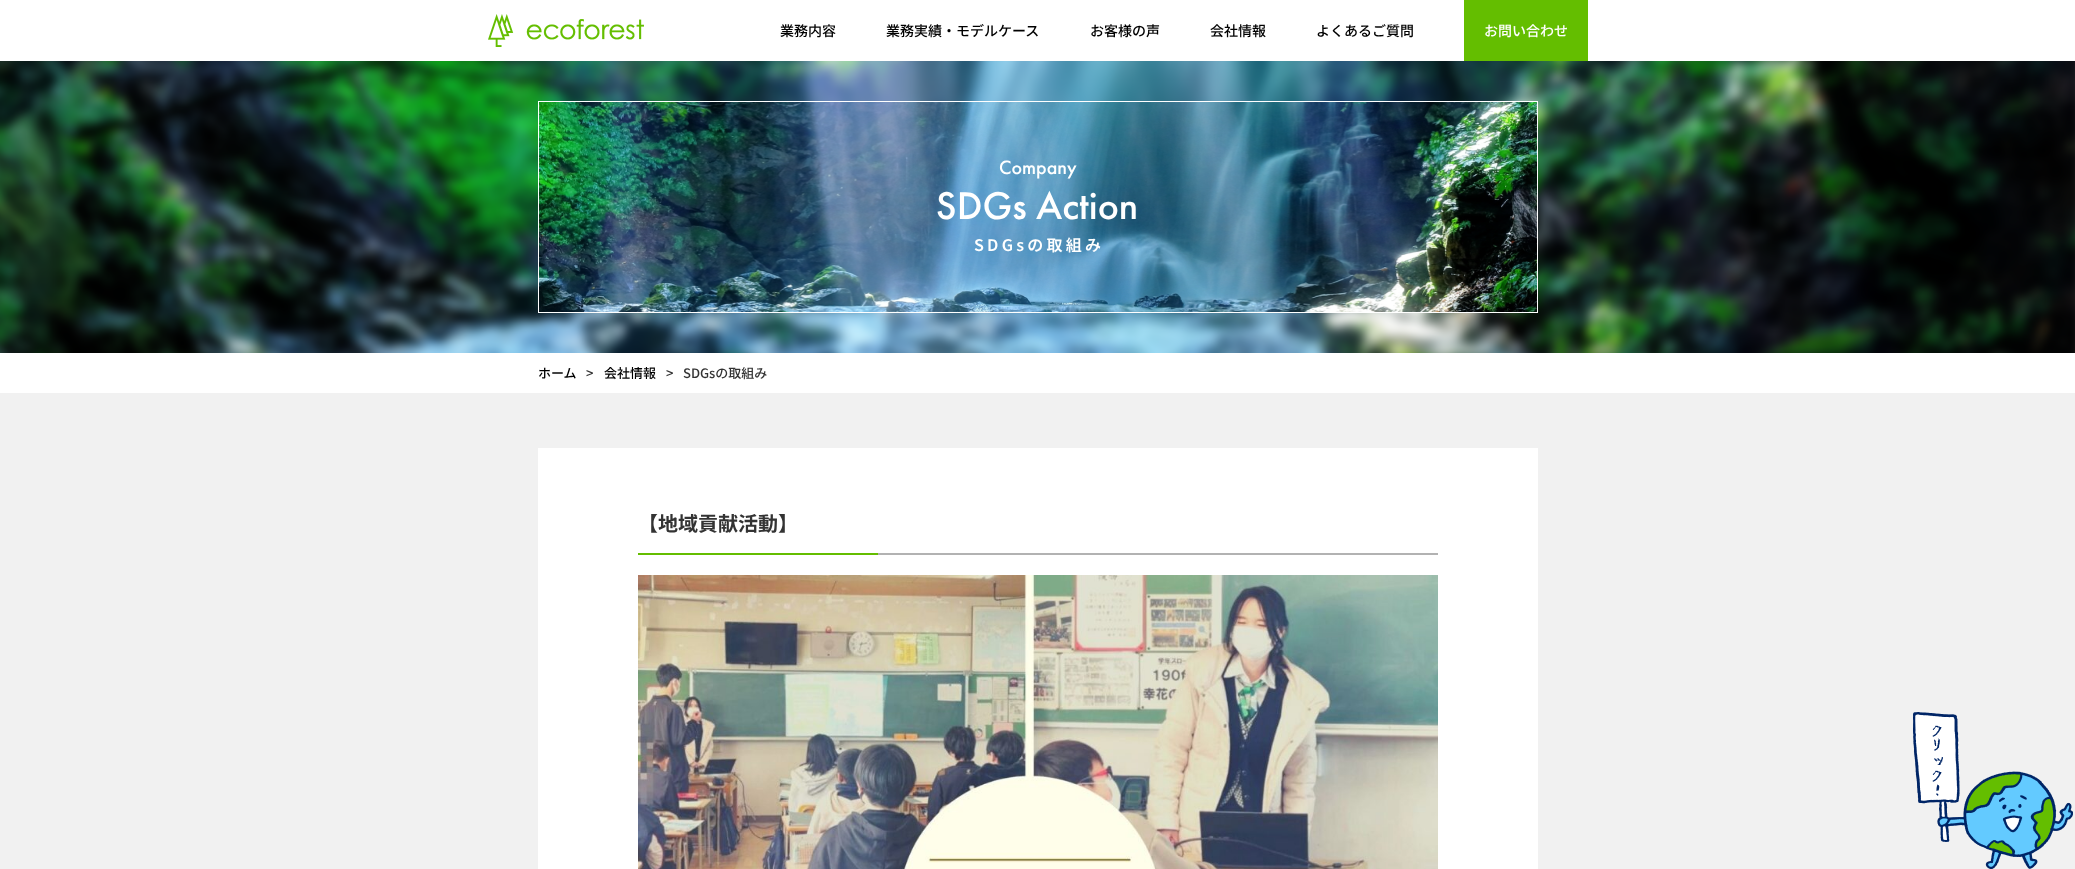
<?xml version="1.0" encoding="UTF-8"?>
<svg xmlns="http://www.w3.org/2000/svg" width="2075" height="869">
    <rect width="100%" height="100%" fill="#FFFFFF"/>
    <image x="488" y="14" width="156" height="33" href="img_01.png"/>
    <text x="780" y="36" font-family="Noto Sans JP" font-size="14" font-weight="500" fill="#000000">業務内容</text>
    <text x="886" y="36" font-family="Noto Sans JP" font-size="14" font-weight="500" fill="#000000">業務実績・モデルケース</text>
    <text x="1090" y="36" font-family="Noto Sans JP" font-size="14" font-weight="500" fill="#000000">お客様の声</text>
    <text x="1210" y="36" font-family="Noto Sans JP" font-size="14" font-weight="500" fill="#000000">会社情報</text>
    <text x="1316" y="36" font-family="Noto Sans JP" font-size="14" font-weight="500" fill="#000000">よくあるご質問</text>
    <rect x="1464" y="0" width="124" height="61" fill="#64BE00"/>
    <text x="1484" y="36" font-family="Noto Sans JP" font-size="14" font-weight="500" fill="#FFFFFF">お問い合わせ</text>
    <image x="0" y="61" width="2075" height="292" href="img_02.png"/>
    <image x="539" y="102" width="998" height="210" href="img_03.png"/>
    <rect x="538.5" y="101.5" width="999" height="211" fill="none" stroke="#FFFFFF"/>
    <text x="999" y="174" font-family="Futura PT" font-size="20" font-weight="500" fill="#FFFFFF">Company</text>
    <text x="936" y="219" font-family="Futura PT" font-size="40" font-weight="500" fill="#FFFFFF">SDGs Action</text>
    <text x="974" y="251" font-family="Noto Sans JP" font-size="16" font-weight="600" letter-spacing="3.25" fill="#FFFFFF">SDGsの取組み</text>
    <text x="538" y="378" font-family="Noto Sans JP" font-size="13" font-weight="500" fill="#000000">ホーム</text>
    <text x="586" y="378" font-family="Noto Sans JP" font-size="13" font-weight="500" fill="#333333">&gt;</text>
    <text x="604" y="378" font-family="Noto Sans JP" font-size="13" font-weight="500" fill="#000000">会社情報</text>
    <text x="666" y="378" font-family="Noto Sans JP" font-size="13" font-weight="500" fill="#333333">&gt;</text>
    <text x="683" y="378" font-family="Noto Sans JP" font-size="13" font-weight="500" fill="#333333">SDGsの取組み</text>
    <rect x="0" y="393" width="2075" height="476" fill="#F1F1F1"/>
    <rect x="538" y="448" width="1000" height="421" fill="#FFFFFF"/>
    <rect x="878" y="553" width="560" height="2" fill="#B2B2B2"/>
    <text x="638" y="531" font-family="Noto Sans JP" font-size="20" font-weight="700" fill="#333333">【地域貢献活動】</text>
    <rect x="638" y="553" width="240" height="2" fill="#64BD00"/>
    <image x="638" y="575" width="800" height="294" href="img_04.png"/>
    <image x="1913" y="712" width="160" height="157" href="img_05.png"/>
</svg>
